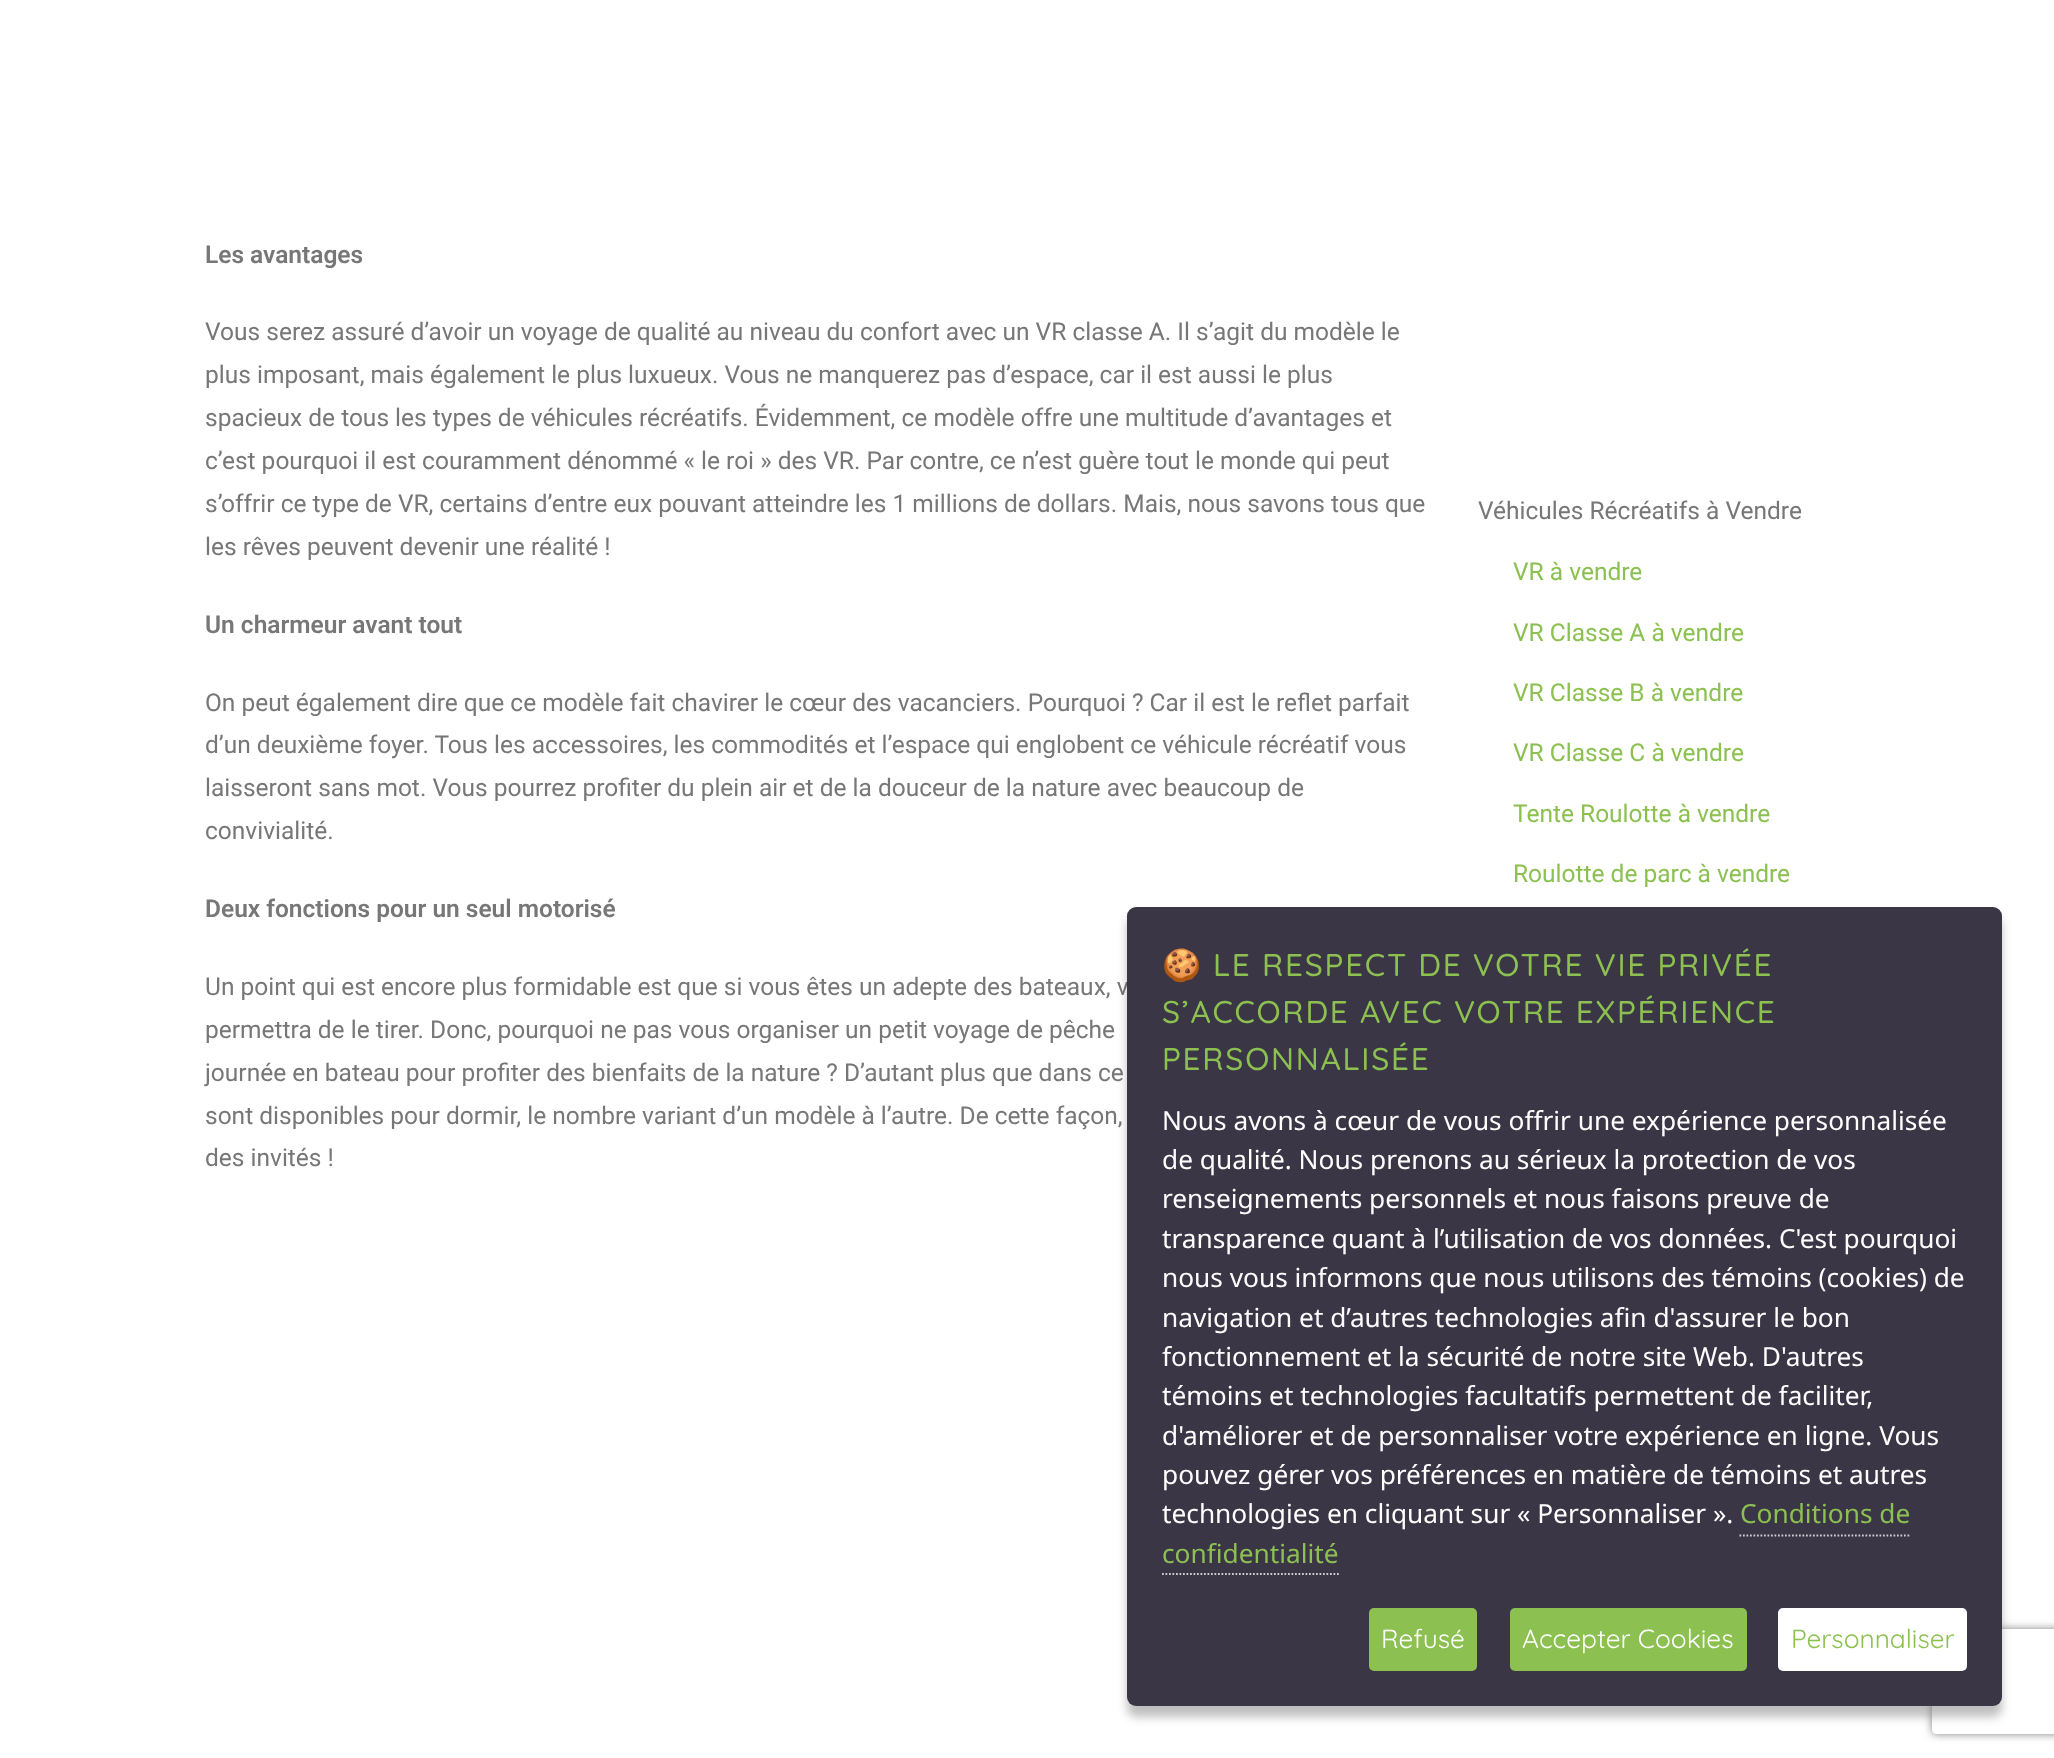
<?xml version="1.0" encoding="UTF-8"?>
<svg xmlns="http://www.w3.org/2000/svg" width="2054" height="1758">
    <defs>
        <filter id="blur1" x="-50%" y="-200%" width="200%" height="500%"><feGaussianBlur stdDeviation="5"/></filter>
        <clipPath id="clip1"><path d="M 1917 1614 H 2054 V 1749 H 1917 Z M 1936 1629 H 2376 C 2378 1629 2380 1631 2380 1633 V 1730 C 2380 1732 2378 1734 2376 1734 H 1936 C 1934 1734 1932 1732 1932 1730 V 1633 C 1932 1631 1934 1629 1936 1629 Z" clip-rule="evenodd"/></clipPath>
        <filter id="blur2" x="-50%" y="-200%" width="200%" height="500%"><feGaussianBlur stdDeviation="4.5"/></filter>
    </defs>
    <rect width="100%" height="100%" fill="#FFFFFF"/>
    <text x="205" y="263" font-family="Roboto" font-size="24.5" font-weight="600" fill="#777777">Les avantages</text>
    <text font-family="Roboto" font-size="24.5" fill="#777777">
        <tspan x="205" y="340">Vous serez assuré d’avoir un voyage de qualité au niveau du confort avec un VR classe A. Il s’agit du modèle le</tspan>
        <tspan x="205" y="383">plus imposant, mais également le plus luxueux. Vous ne manquerez pas d’espace, car il est aussi le plus</tspan>
        <tspan x="205" y="426">spacieux de tous les types de véhicules récréatifs. Évidemment, ce modèle offre une multitude d’avantages et</tspan>
        <tspan x="205" y="469">c’est pourquoi il est couramment dénommé « le roi » des VR. Par contre, ce n’est guère tout le monde qui peut</tspan>
        <tspan x="205" y="512">s’offrir ce type de VR, certains d’entre eux pouvant atteindre les 1 millions de dollars. Mais, nous savons tous que</tspan>
        <tspan x="205" y="555">les rêves peuvent devenir une réalité !</tspan>
    </text>
    <text x="205" y="633" font-family="Roboto" font-size="24.5" font-weight="600" fill="#777777">Un charmeur avant tout</text>
    <text font-family="Roboto" font-size="24.5" fill="#777777">
        <tspan x="205" y="711">On peut également dire que ce modèle fait chavirer le cœur des vacanciers. Pourquoi ? Car il est le reflet parfait</tspan>
        <tspan x="205" y="753">d’un deuxième foyer. Tous les accessoires, les commodités et l’espace qui englobent ce véhicule récréatif vous</tspan>
        <tspan x="205" y="796">laisseront sans mot. Vous pourrez profiter du plein air et de la douceur de la nature avec beaucoup de</tspan>
        <tspan x="205" y="839">convivialité.</tspan>
    </text>
    <text x="205" y="917" font-family="Roboto" font-size="24.5" font-weight="600" fill="#777777">Deux fonctions pour un seul motorisé</text>
    <text font-family="Roboto" font-size="24.5" fill="#777777">
        <tspan x="205" y="995">Un point qui est encore plus formidable est que si vous êtes un adepte des bateaux, v</tspan>
        <tspan x="205" y="1038">permettra de le tirer. Donc, pourquoi ne pas vous organiser un petit voyage de pêche</tspan>
        <tspan x="205" y="1081">journée en bateau pour profiter des bienfaits de la nature ? D’autant plus que dans ce</tspan>
        <tspan x="205" y="1124">sont disponibles pour dormir, le nombre variant d’un modèle à l’autre. De cette façon,</tspan>
        <tspan x="205" y="1166">des invités !</tspan>
    </text>
    <text x="1478" y="519" font-family="Roboto" font-size="24.5" fill="#777777">Véhicules Récréatifs à Vendre</text>
    <text x="1513" y="580" font-family="Roboto" font-size="24.5" fill="#8CC152">VR à vendre</text>
    <text x="1513" y="641" font-family="Roboto" font-size="24.5" fill="#8CC152">VR Classe A à vendre</text>
    <text x="1513" y="701" font-family="Roboto" font-size="24.5" fill="#8CC152">VR Classe B à vendre</text>
    <text x="1513" y="761" font-family="Roboto" font-size="24.5" fill="#8CC152">VR Classe C à vendre</text>
    <text x="1513" y="822" font-family="Roboto" font-size="24.5" fill="#8CC152">Tente Roulotte à vendre</text>
    <text x="1513" y="882" font-family="Roboto" font-size="24.5" fill="#8CC152">Roulotte de parc à vendre</text>
    <rect x="1127" y="917" width="875" height="800" rx="9" fill="#000000" fill-opacity="0.25" filter="url(#blur1)"/>
    <g clip-path="url(#clip1)">
        <rect x="1932" y="1629" width="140" height="105" rx="4" fill="#808080" filter="url(#blur2)"/>
    </g>
    <rect x="1127" y="907" width="875" height="799" rx="9" fill="#3B3646"/>
    <text x="1162" y="976" font-family="Noto Color Emoji" font-size="31.5" letter-spacing="1.75" fill="#8CC152">🍪</text>
    <text x="1213" y="976" font-family="Quicksand" font-size="31.5" font-weight="500" letter-spacing="1.75" fill="#8CC152">LE RESPECT DE VOTRE VIE PRIVÉE</text>
    <text font-family="Quicksand" font-size="31.5" font-weight="500" letter-spacing="1.75" fill="#8CC152">
        <tspan x="1162" y="1023">S’ACCORDE AVEC VOTRE EXPÉRIENCE</tspan>
        <tspan x="1162" y="1070">PERSONNALISÉE</tspan>
    </text>
    <text font-family="Noto Sans" font-size="26.25" fill="#FFFFFF">
        <tspan x="1162" y="1130">Nous avons à cœur de vous offrir une expérience personnalisée</tspan>
        <tspan x="1162" y="1169">de qualité. Nous prenons au sérieux la protection de vos</tspan>
        <tspan x="1162" y="1208">renseignements personnels et nous faisons preuve de</tspan>
        <tspan x="1162" y="1248">transparence quant à l’utilisation de vos données. C'est pourquoi</tspan>
        <tspan x="1162" y="1287">nous vous informons que nous utilisons des témoins (cookies) de</tspan>
        <tspan x="1162" y="1327">navigation et d’autres technologies afin d'assurer le bon</tspan>
        <tspan x="1162" y="1366">fonctionnement et la sécurité de notre site Web. D'autres</tspan>
        <tspan x="1162" y="1405">témoins et technologies facultatifs permettent de faciliter,</tspan>
        <tspan x="1162" y="1445">d'améliorer et de personnaliser votre expérience en ligne. Vous</tspan>
        <tspan x="1162" y="1484">pouvez gérer vos préférences en matière de témoins et autres</tspan>
        <tspan x="1162" y="1523">technologies en cliquant sur « Personnaliser ».</tspan>
    </text>
    <text x="1740" y="1523" font-family="Noto Sans" font-size="26.25" fill="#8CC152">Conditions de</text>
    <path d="M 1739.5 1535.5 H 1911" fill="none" stroke="#CECDD1" stroke-width="1.8" stroke-dasharray="1.75 1.75"/>
    <text x="1162" y="1563" font-family="Noto Sans" font-size="26.25" fill="#8CC152">confidentialité</text>
    <path d="M 1162 1574 H 1339" fill="none" stroke="#CECDD1" stroke-width="1.8" stroke-dasharray="1.75 1.75"/>
    <rect x="1369" y="1608" width="108" height="63" rx="5" fill="#8CC152"/>
    <text x="1381" y="1648" font-family="Quicksand" font-size="26.25" fill="#FFFFFF">Refusé</text>
    <rect x="1510" y="1608" width="237" height="63" rx="5" fill="#8CC152"/>
    <text x="1522" y="1648" font-family="Quicksand" font-size="26.25" fill="#FFFFFF">Accepter Cookies</text>
    <rect x="1778" y="1608" width="189" height="63" rx="5" fill="#FFFFFF"/>
    <text x="1791" y="1648" font-family="Quicksand" font-size="26.25" fill="#8CC152">Personnaliser</text>
</svg>
